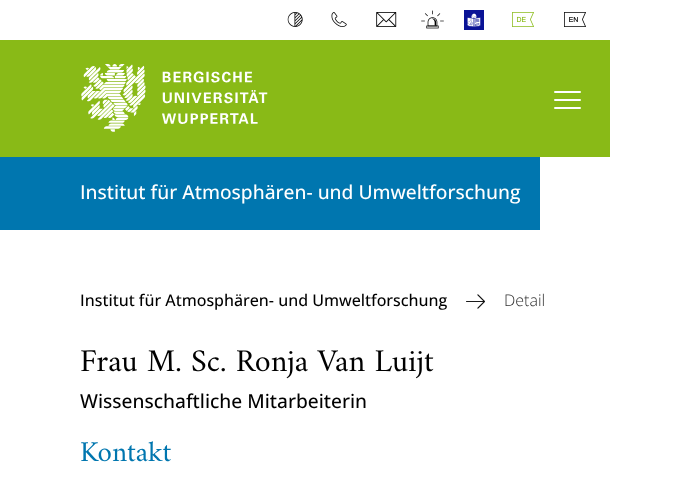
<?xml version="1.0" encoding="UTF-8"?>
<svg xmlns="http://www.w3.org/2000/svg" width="679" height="477">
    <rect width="100%" height="100%" fill="#FFFFFF"/>
    <image x="287" y="12" width="16" height="15" href="img_01.png"/>
    <image x="331" y="12" width="16" height="15" href="img_02.png"/>
    <image x="376" y="12" width="21" height="15" href="img_03.png"/>
    <image x="421" y="10" width="23" height="19" href="img_04.png"/>
    <image x="464" y="10" width="20" height="20" href="img_05.png"/>
    <image x="512" y="12" width="22" height="15" href="img_06.png"/>
    <image x="564" y="12" width="22" height="15" href="img_07.png"/>
    <rect x="0" y="40" width="610" height="117" fill="#89BA17"/>
    <image x="81" y="64" width="187" height="68" href="img_08.png"/>
    <rect x="554" y="91" width="27" height="2" rx="1" fill="#FFFFFF"/>
    <rect x="554" y="99" width="27" height="2" rx="1" fill="#FFFFFF"/>
    <rect x="554" y="107" width="27" height="2" rx="1" fill="#FFFFFF"/>
    <rect x="0" y="157" width="540" height="73" fill="#0076AF"/>
    <text x="80" y="199" font-family="Open Sans" font-size="19.2" font-weight="500" fill="#FFFFFF">Institut für Atmosphären- und Umweltforschung</text>
    <text x="80" y="306" font-family="Open Sans" font-size="16" font-weight="500" fill="#000000">Institut für Atmosphären- und Umweltforschung</text>
    <image x="466" y="294" width="19" height="15" href="img_09.png"/>
    <text x="504" y="306" font-family="Open Sans" font-size="16" font-weight="300" fill="#323232">Detail</text>
    <text x="80" y="371" font-family="Amiri" font-size="32" fill="#000000">Frau M. Sc. Ronja Van Luijt</text>
    <text x="80" y="408" font-family="Open Sans" font-size="19.2" font-weight="500" fill="#000000">Wissenschaftliche Mitarbeiterin</text>
    <text x="80" y="461" font-family="Amiri" font-size="29" fill="#0076AF">Kontakt</text>
</svg>
